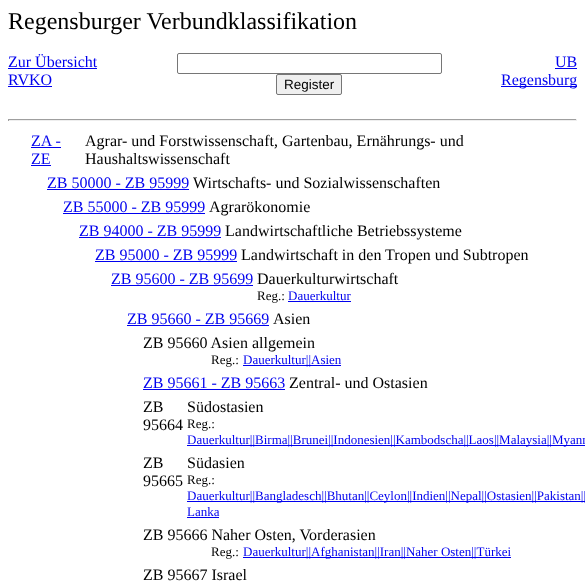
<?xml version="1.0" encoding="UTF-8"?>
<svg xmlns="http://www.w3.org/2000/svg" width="585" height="581">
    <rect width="100%" height="100%" fill="#FFFFFF"/>
    <text x="8" y="29" font-family="Liberation Serif" font-size="24" fill="#000000">Regensburger Verbundklassifikation</text>
    <text x="8" y="67" font-family="Liberation Serif" font-size="16" fill="#0000EE">Zur Übersicht</text>
    <rect x="8" y="68" width="89" height="1" fill="#0000EE"/>
    <text x="8" y="85" font-family="Liberation Serif" font-size="16" fill="#0000EE">RVKO</text>
    <rect x="8" y="86" width="44" height="1" fill="#0000EE"/>
    <rect x="177.5" y="53.5" width="264" height="20" rx="1.5" fill="none" stroke="#767676"/>
    <rect x="276.5" y="74.5" width="65" height="20" rx="1.5" fill="#EFEFEF" stroke="#767676"/>
    <text x="284" y="89" font-family="Liberation Sans" font-size="13.5" fill="#000000">Register</text>
    <text x="555" y="67" font-family="Liberation Serif" font-size="16" fill="#0000EE">UB</text>
    <rect x="555" y="68" width="22" height="1" fill="#0000EE"/>
    <rect x="501" y="86" width="76" height="1" fill="#0000EE"/>
    <text x="501" y="85" font-family="Liberation Serif" font-size="16" fill="#0000EE">Regensburg</text>
    <rect x="8" y="119" width="569" height="1" fill="#9F9F9F"/>
    <rect x="576" y="119" width="1" height="2" fill="#EEEEEE"/>
    <rect x="8" y="120" width="569" height="1" fill="#EEEEEE"/>
    <rect x="8" y="119" width="1" height="2" fill="#9F9F9F"/>
    <text x="31" y="146" font-family="Liberation Serif" font-size="16" fill="#0000EE">ZA -</text>
    <rect x="31" y="147" width="30" height="1" fill="#0000EE"/>
    <text x="31" y="164" font-family="Liberation Serif" font-size="16" fill="#0000EE">ZE</text>
    <rect x="31" y="165" width="20" height="1" fill="#0000EE"/>
    <text font-family="Liberation Serif" font-size="16" fill="#000000">
        <tspan x="85" y="146">Agrar- und Forstwissenschaft, Gartenbau, Ernährungs- und</tspan>
        <tspan x="85" y="164">Haushaltswissenschaft</tspan>
    </text>
    <text x="47" y="188" font-family="Liberation Serif" font-size="16" fill="#0000EE">ZB 50000 - ZB 95999</text>
    <rect x="47" y="189" width="142" height="1" fill="#0000EE"/>
    <text x="193" y="188" font-family="Liberation Serif" font-size="16" fill="#000000">Wirtschafts- und Sozialwissenschaften</text>
    <text x="63" y="212" font-family="Liberation Serif" font-size="16" fill="#0000EE">ZB 55000 - ZB 95999</text>
    <rect x="63" y="213" width="142" height="1" fill="#0000EE"/>
    <text x="209" y="212" font-family="Liberation Serif" font-size="16" fill="#000000">Agrarökonomie</text>
    <text x="79" y="236" font-family="Liberation Serif" font-size="16" fill="#0000EE">ZB 94000 - ZB 95999</text>
    <rect x="79" y="237" width="142" height="1" fill="#0000EE"/>
    <text x="225" y="236" font-family="Liberation Serif" font-size="16" fill="#000000">Landwirtschaftliche Betriebssysteme</text>
    <text x="95" y="260" font-family="Liberation Serif" font-size="16" fill="#0000EE">ZB 95000 - ZB 95999</text>
    <rect x="95" y="261" width="142" height="1" fill="#0000EE"/>
    <text x="241" y="260" font-family="Liberation Serif" font-size="16" fill="#000000">Landwirtschaft in den Tropen und Subtropen</text>
    <text x="111" y="284" font-family="Liberation Serif" font-size="16" fill="#0000EE">ZB 95600 - ZB 95699</text>
    <rect x="111" y="285" width="142" height="1" fill="#0000EE"/>
    <text x="257" y="284" font-family="Liberation Serif" font-size="16" fill="#000000">Dauerkulturwirtschaft</text>
    <text x="257" y="300" font-family="Liberation Serif" font-size="13" fill="#000000">Reg.:</text>
    <text x="288" y="300" font-family="Liberation Serif" font-size="13" fill="#0000EE">Dauerkultur</text>
    <rect x="288" y="301" width="63" height="1" fill="#0000EE"/>
    <text x="127" y="324" font-family="Liberation Serif" font-size="16" fill="#0000EE">ZB 95660 - ZB 95669</text>
    <rect x="127" y="325" width="142" height="1" fill="#0000EE"/>
    <text x="273" y="324" font-family="Liberation Serif" font-size="16" fill="#000000">Asien</text>
    <text x="143" y="348" font-family="Liberation Serif" font-size="16" fill="#000000">ZB 95660 Asien allgemein</text>
    <text x="211" y="364" font-family="Liberation Serif" font-size="13" fill="#000000">Reg.:</text>
    <rect x="243" y="365" width="98" height="1" fill="#0000EE"/>
    <text x="243" y="364" font-family="Liberation Serif" font-size="13" fill="#0000EE">Dauerkultur||Asien</text>
    <text x="143" y="388" font-family="Liberation Serif" font-size="16" fill="#0000EE">ZB 95661 - ZB 95663</text>
    <rect x="143" y="389" width="142" height="1" fill="#0000EE"/>
    <text x="289" y="388" font-family="Liberation Serif" font-size="16" fill="#000000">Zentral- und Ostasien</text>
    <text font-family="Liberation Serif" font-size="16" fill="#000000">
        <tspan x="143" y="412">ZB</tspan>
        <tspan x="143" y="430">95664</tspan>
    </text>
    <text x="187" y="412" font-family="Liberation Serif" font-size="16" fill="#000000">Südostasien</text>
    <text x="187" y="428" font-family="Liberation Serif" font-size="13" fill="#000000">Reg.:</text>
    <rect x="187" y="445" width="398" height="1" fill="#0000EE"/>
    <text x="187" y="444" font-family="Liberation Serif" font-size="13" fill="#0000EE">Dauerkultur||Birma||Brunei||Indonesien||Kambodscha||Laos||Malaysia||Myanm</text>
    <text font-family="Liberation Serif" font-size="16" fill="#000000">
        <tspan x="143" y="468">ZB</tspan>
        <tspan x="143" y="486">95665</tspan>
    </text>
    <text x="187" y="468" font-family="Liberation Serif" font-size="16" fill="#000000">Südasien</text>
    <text x="187" y="484" font-family="Liberation Serif" font-size="13" fill="#000000">Reg.:</text>
    <rect x="187" y="501" width="398" height="1" fill="#0000EE"/>
    <text font-family="Liberation Serif" font-size="13" fill="#0000EE">
        <tspan x="187" y="500">Dauerkultur||Bangladesch||Bhutan||Ceylon||Indien||Nepal||Ostasien||Pakistan||</tspan>
        <tspan x="187" y="516">Lanka</tspan>
    </text>
    <rect x="187" y="517" width="32" height="1" fill="#0000EE"/>
    <text x="143" y="540" font-family="Liberation Serif" font-size="16" fill="#000000">ZB 95666 Naher Osten, Vorderasien</text>
    <text x="211" y="556" font-family="Liberation Serif" font-size="13" fill="#000000">Reg.:</text>
    <rect x="243" y="557" width="268" height="1" fill="#0000EE"/>
    <text x="243" y="556" font-family="Liberation Serif" font-size="13" fill="#0000EE">Dauerkultur||Afghanistan||Iran||Naher Osten||Türkei</text>
    <text x="143" y="580" font-family="Liberation Serif" font-size="16" fill="#000000">ZB 95667 Israel</text>
</svg>
